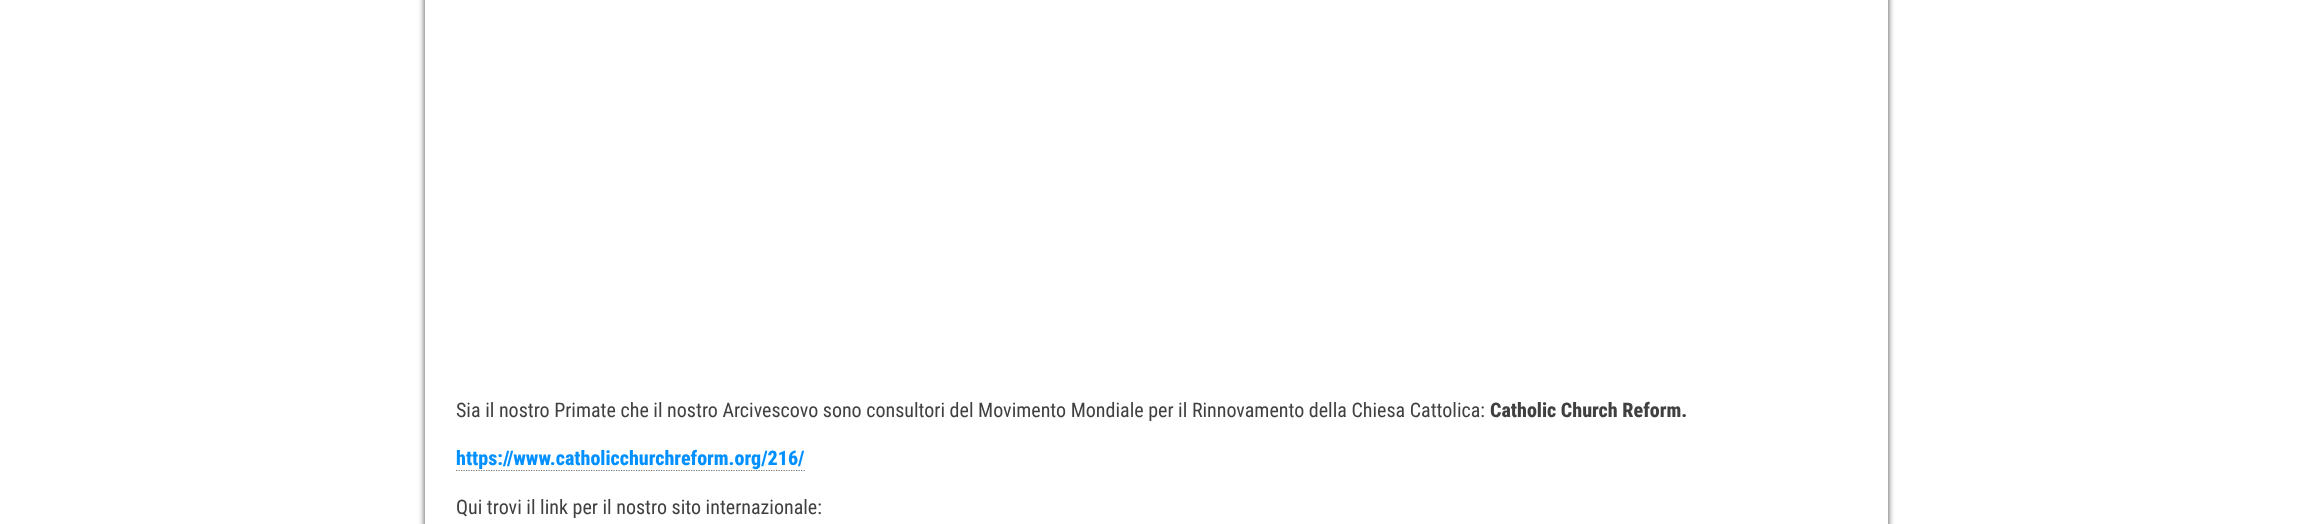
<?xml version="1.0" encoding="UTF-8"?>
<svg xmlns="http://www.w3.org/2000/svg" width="2312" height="524">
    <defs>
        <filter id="blur1" x="-50%" y="-200%" width="200%" height="500%"><feGaussianBlur stdDeviation="3"/></filter>
    </defs>
    <rect width="100%" height="100%" fill="#FFFFFF"/>
    <rect x="425" y="-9" width="1463" height="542" fill="#000000" fill-opacity="0.75" filter="url(#blur1)"/>
    <rect x="425" y="0" width="1463" height="524" fill="#FFFFFF"/>
    <text x="456" y="417" font-family="Roboto Condensed" font-size="20" fill="#404040">Sia il nostro Primate che il nostro Arcivescovo sono consultori del Movimento Mondiale per il Rinnovamento della Chiesa Cattolica:</text>
    <text x="1490" y="417" font-family="Roboto Condensed" font-size="20" font-weight="800" fill="#404040">Catholic Church Reform.</text>
    <path d="M 456 470.5 H 805" fill="none" stroke="#777777" stroke-width="1.2" stroke-dasharray="1.25 1.25"/>
    <text x="456" y="465" font-family="Roboto Condensed" font-size="20" font-weight="800" fill="#0090FF">https://www.catholicchurchreform.org/216/</text>
    <text x="456" y="514" font-family="Roboto Condensed" font-size="20" fill="#404040">Qui trovi il link per il nostro sito internazionale:</text>
</svg>
